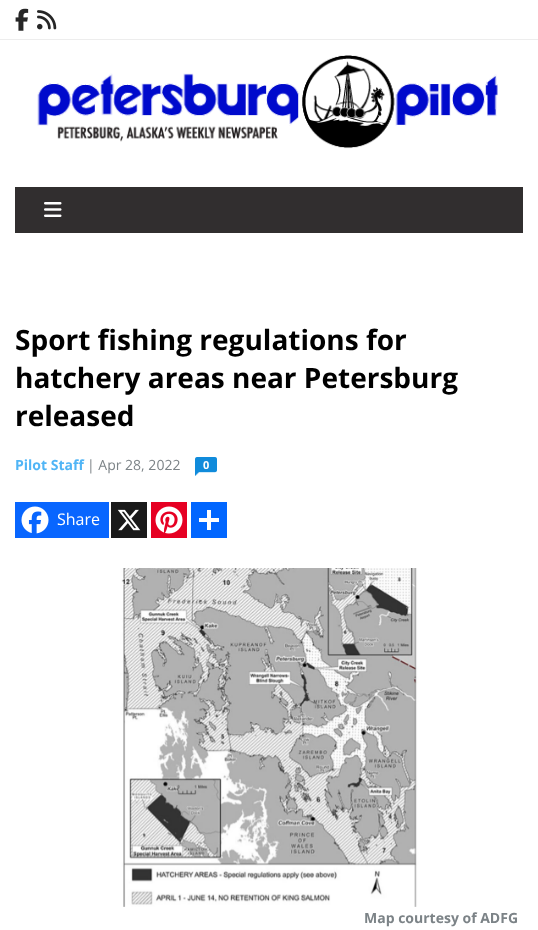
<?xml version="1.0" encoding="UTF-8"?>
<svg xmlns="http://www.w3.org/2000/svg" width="538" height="930">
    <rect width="100%" height="100%" fill="#FFFFFF"/>
    <rect x="0" y="39" width="538" height="1" fill="#EDEDED"/>
    <image x="15" y="8" width="14" height="23" href="img_01.png"/>
    <image x="37" y="10" width="20" height="20" href="img_02.png"/>
    <image x="37" y="55" width="461" height="94" href="img_03.png"/>
    <rect x="15" y="187" width="508" height="46" fill="#312E2F"/>
    <image x="44" y="202" width="18" height="15" href="img_04.png"/>
    <text font-family="Open Sans" font-size="28" font-weight="700" fill="#000000">
        <tspan x="15" y="350">Sport fishing regulations for</tspan>
        <tspan x="15" y="388">hatchery areas near Petersburg</tspan>
        <tspan x="15" y="426">released</tspan>
    </text>
    <text x="15" y="470" font-family="Open Sans" font-size="14" font-weight="700" fill="#50B5F6">Pilot Staff</text>
    <text x="87" y="470" font-family="Open Sans" font-size="14" fill="#7C8387">| Apr 28, 2022</text>
    <image x="195" y="457" width="22" height="19" href="img_05.png"/>
    <text x="203" y="469" font-family="Open Sans" font-size="11" font-weight="700" fill="#FFFFFF">0</text>
    <rect x="15" y="502" width="94" height="36" fill="#0866FF"/>
    <image x="21" y="506" width="28" height="28" href="img_06.png"/>
    <text x="57" y="525" font-family="Open Sans" font-size="16" fill="#FFFFFF">Share</text>
    <rect x="111" y="502" width="36" height="36" fill="#1A1A1A"/>
    <image x="117" y="509" width="24" height="22" href="img_07.png"/>
    <rect x="151" y="502" width="36" height="36" fill="#E60023"/>
    <image x="155" y="506" width="28" height="28" href="img_08.png"/>
    <rect x="191" y="502" width="36" height="36" fill="#0166FF"/>
    <rect x="207" y="510" width="4" height="20" fill="#FFFFFF"/>
    <rect x="199" y="518" width="20" height="4" fill="#FFFFFF"/>
    <image x="15" y="568" width="508" height="339" href="img_09.png"/>
    <text x="364" y="923" font-family="Open Sans" font-size="14" font-weight="700" fill="#7C8387">Map courtesy of ADFG</text>
</svg>
